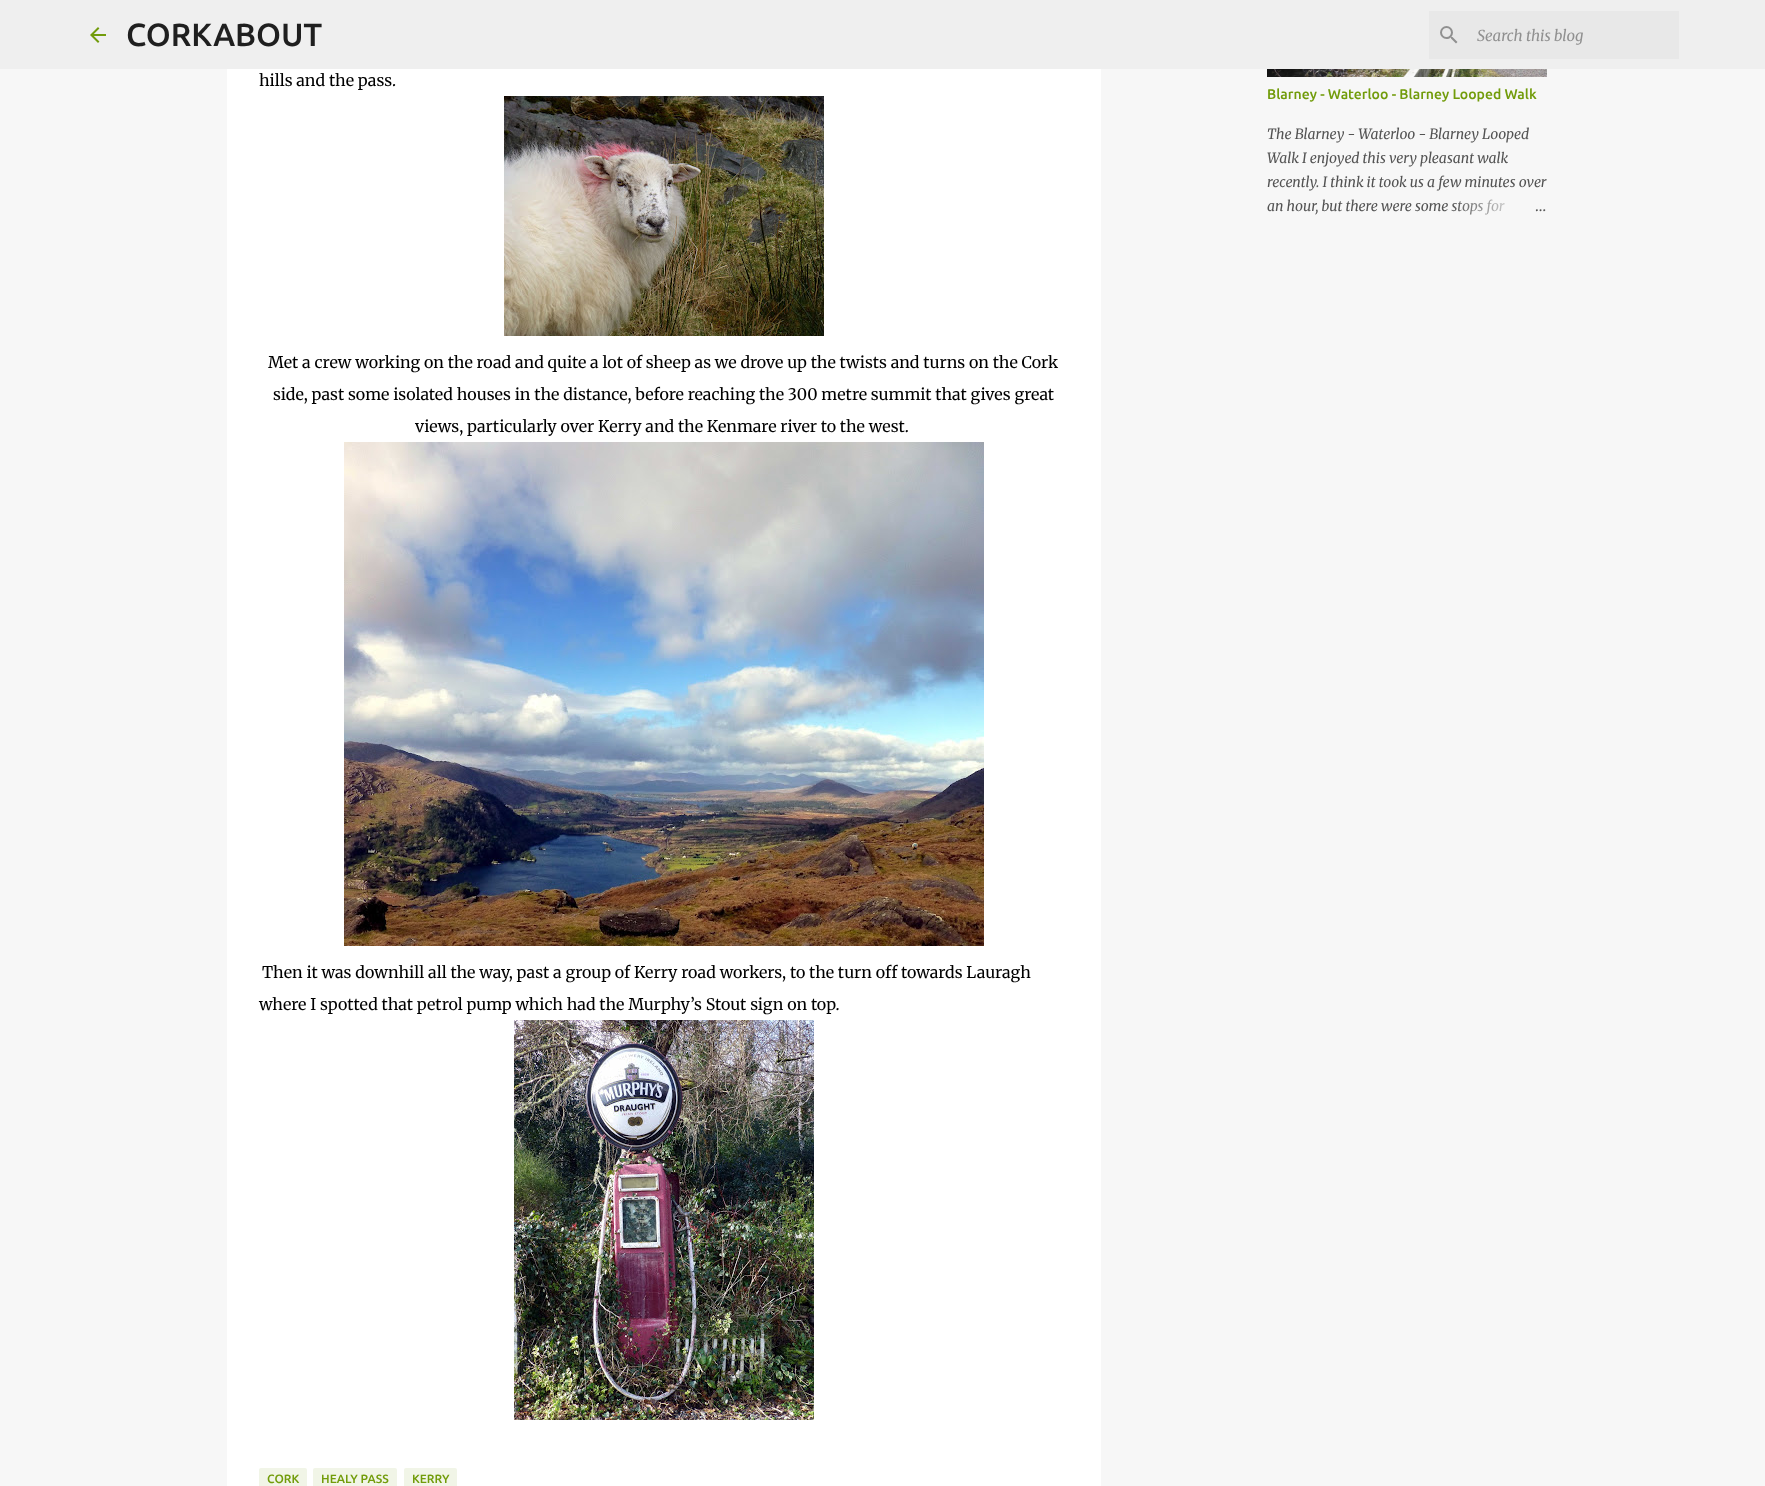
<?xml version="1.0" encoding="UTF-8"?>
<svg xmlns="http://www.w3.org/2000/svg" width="1765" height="1486">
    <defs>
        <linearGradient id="g1" gradientUnits="userSpaceOnUse" x1="1547" y1="206" x2="1451" y2="206"><stop offset="0" stop-color="#F7F7F7"/><stop offset="0.2" stop-color="#F7F7F7"/><stop offset="1" stop-color="#F7F7F7" stop-opacity="0"/></linearGradient>
    </defs>
    <rect width="100%" height="100%" fill="#F7F7F7"/>
    <rect x="0" y="0" width="1765" height="69" fill="#EFEFEF"/>
    <image x="90" y="27" width="16" height="16" href="img_01.png"/>
    <text x="126" y="46" font-family="Ubuntu" font-size="32" font-weight="500" fill="#1F1F1F">CORKABOUT</text>
    <rect x="1429" y="11" width="250" height="48" fill="#E8E8E8"/>
    <image x="1440" y="26" width="18" height="18" href="img_02.png"/>
    <text x="1477" y="41" font-family="Merriweather" font-size="15" font-style="italic" fill="#909090">Search this blog</text>
    <rect x="227" y="69" width="874" height="1417" fill="#FFFFFF"/>
    <text x="259" y="86" font-family="Merriweather" font-size="16" font-weight="300" fill="#000000">hills and the pass.</text>
    <image x="504" y="96" width="320" height="240" href="img_03.png"/>
    <text x="268" y="368" font-family="Merriweather" font-size="16" font-weight="300" fill="#000000">Met a crew working on the road and quite a lot of sheep as we drove up the twists and turns on the Cork</text>
    <text x="273" y="400" font-family="Merriweather" font-size="16" font-weight="300" fill="#000000">side, past some isolated houses in the distance, before reaching the 300 metre summit that gives great</text>
    <text x="415" y="432" font-family="Merriweather" font-size="16" font-weight="300" fill="#000000">views, particularly over Kerry and the Kenmare river to the west.</text>
    <image x="344" y="442" width="640" height="504" href="img_04.png"/>
    <text x="262" y="978" font-family="Merriweather" font-size="16" font-weight="300" fill="#000000">Then it was downhill all the way, past a group of Kerry road workers, to the turn off towards Lauragh</text>
    <text x="259" y="1010" font-family="Merriweather" font-size="16" font-weight="300" fill="#000000">where I spotted that petrol pump which had the Murphy’s Stout sign on top.</text>
    <image x="514" y="1020" width="300" height="400" href="img_05.png"/>
    <rect x="259" y="1468" width="48" height="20" rx="2" fill="#F1F5E7"/>
    <text x="267" y="1483" font-family="Ubuntu" font-size="12" font-weight="500" fill="#729C0B">CORK</text>
    <rect x="313" y="1468" width="84" height="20" rx="2" fill="#F1F5E7"/>
    <text x="321" y="1483" font-family="Ubuntu" font-size="12" font-weight="500" fill="#729C0B">HEALY PASS</text>
    <rect x="404" y="1468" width="53" height="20" rx="2" fill="#F1F5E7"/>
    <text x="412" y="1483" font-family="Ubuntu" font-size="12" font-weight="500" fill="#729C0B">KERRY</text>
    <image x="1267" y="69" width="280" height="8" href="img_06.png"/>
    <text x="1267" y="99" font-family="Ubuntu" font-size="14" font-weight="500" fill="#729C0B">Blarney - Waterloo - Blarney Looped Walk</text>
    <text font-family="Merriweather" font-size="14" font-style="italic" fill="#535353">
        <tspan x="1267" y="139">The Blarney - Waterloo - Blarney Looped</tspan>
        <tspan x="1267" y="163">Walk I enjoyed this very pleasant walk</tspan>
        <tspan x="1267" y="187">recently. I think it took us a few minutes over</tspan>
        <tspan x="1267" y="211">an hour, but there were some stops for</tspan>
    </text>
    <rect x="1453" y="199" width="52" height="16" fill="url(#g1)"/>
    <text x="1535" y="211" font-family="Merriweather" font-size="14" font-weight="300" fill="#535353">…</text>
</svg>
